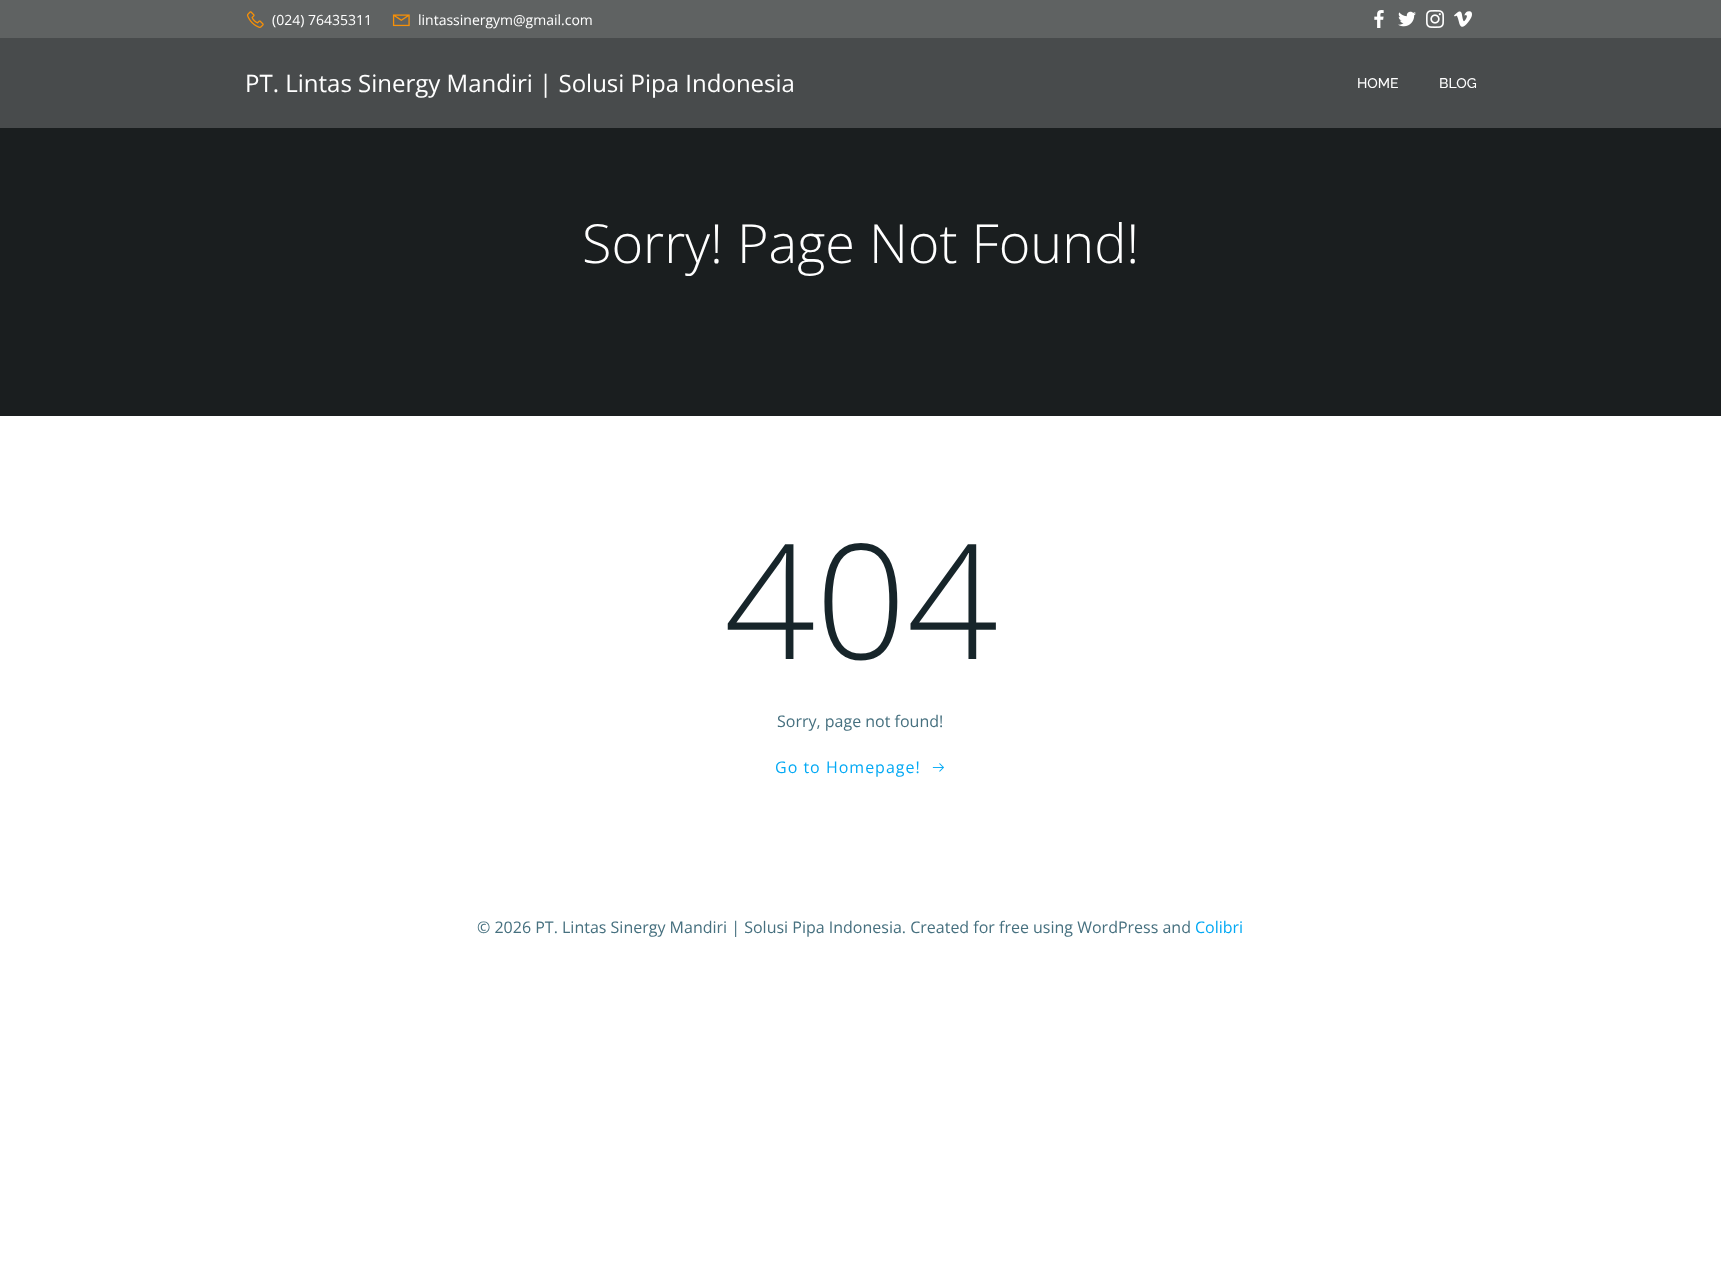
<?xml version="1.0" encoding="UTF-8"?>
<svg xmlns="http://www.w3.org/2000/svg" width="1721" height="1261">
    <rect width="100%" height="100%" fill="#FFFFFF"/>
    <rect x="0" y="0" width="1721" height="38" fill="#5F6262"/>
    <image x="246" y="11" width="18" height="17" href="img_01.png"/>
    <text x="272" y="25" font-family="Open Sans" font-size="14" fill="#FFFFFF">(024) 76435311</text>
    <image x="392" y="14" width="18" height="13" href="img_02.png"/>
    <text x="418" y="25" font-family="Open Sans" font-size="14" fill="#FFFFFF">lintassinergym@gmail.com</text>
    <image x="1374" y="10" width="10" height="18" href="img_03.png"/>
    <image x="1398" y="11" width="18" height="16" href="img_04.png"/>
    <image x="1426" y="10" width="18" height="18" href="img_05.png"/>
    <image x="1454" y="11" width="18" height="16" href="img_06.png"/>
    <rect x="0" y="38" width="1721" height="90" fill="#484B4C"/>
    <text x="245" y="92" font-family="Open Sans" font-size="24" fill="#FFFFFF">PT. Lintas Sinergy Mandiri | Solusi Pipa Indonesia</text>
    <text x="1357" y="88" font-family="Raleway" font-size="14" font-weight="500" fill="#FFFFFF">HOME</text>
    <text x="1439" y="88" font-family="Raleway" font-size="14" font-weight="500" fill="#FFFFFF">BLOG</text>
    <rect x="0" y="128" width="1721" height="288" fill="#1A1E1F"/>
    <text x="582" y="263" font-family="Open Sans" font-size="54" font-weight="300" fill="#FFFFFF">Sorry! Page Not Found!</text>
    <text x="724" y="659" font-family="Open Sans" font-size="160" font-weight="300" fill="#17252A">404</text>
    <text x="777" y="727" font-family="Open Sans" font-size="16" fill="#46707F">Sorry, page not found!</text>
    <text x="775" y="773" font-family="Open Sans" font-size="16" letter-spacing="1" fill="#03A9F4">Go to Homepage!</text>
    <image x="932" y="763" width="12" height="9" href="img_07.png"/>
    <text x="477" y="933" font-family="Open Sans" font-size="16" fill="#46707F">© 2026 PT. Lintas Sinergy Mandiri | Solusi Pipa Indonesia. Created for free using WordPress and</text>
    <text x="1195" y="933" font-family="Open Sans" font-size="16" fill="#03A9F4">Colibri</text>
</svg>
